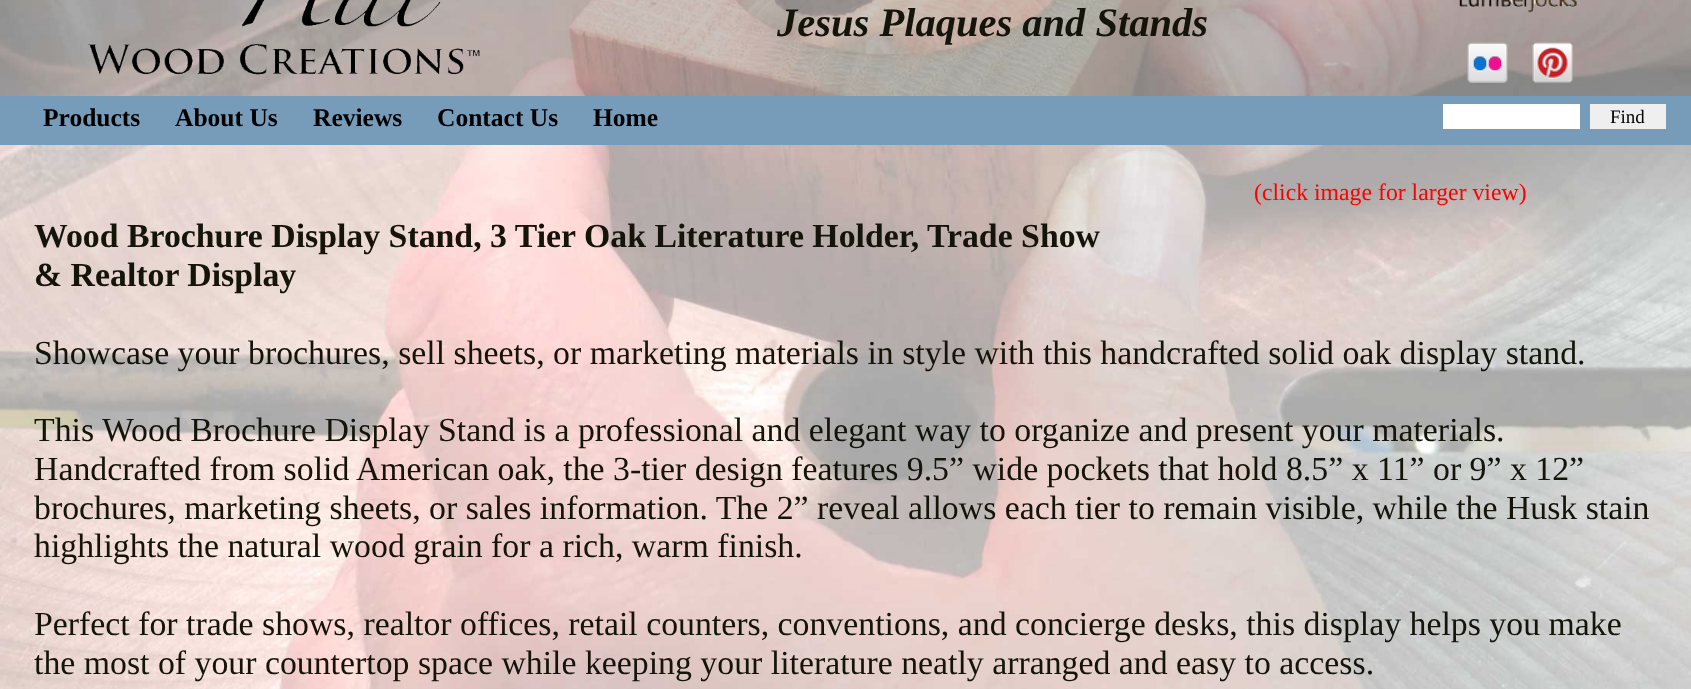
<?xml version="1.0" encoding="UTF-8"?>
<svg xmlns="http://www.w3.org/2000/svg" width="1691" height="689">
    <rect width="100%" height="100%" fill="#FFFFFF"/>
    <image x="0" y="0" width="1691" height="689" href="img_01.png"/>
    <rect x="0" y="0" width="1691" height="96" fill="#000000" fill-opacity="0.2"/>
    <image x="87" y="0" width="393" height="75" href="img_02.png"/>
    <text x="777" y="36" font-family="Liberation Serif" font-size="40.5" font-weight="700" font-style="italic" fill="#14140A">Jesus Plaques and Stands</text>
    <image x="1459" y="0" width="119" height="13" href="img_03.png"/>
    <image x="1467" y="42" width="41" height="41" href="img_04.png"/>
    <image x="1532" y="42" width="41" height="41" href="img_05.png"/>
    <rect x="0" y="96" width="1691" height="49" fill="#779CBA"/>
    <text x="43" y="126" font-family="Liberation Serif" font-size="25.5" font-weight="700" fill="#000000">Products</text>
    <text x="175" y="126" font-family="Liberation Serif" font-size="25.5" font-weight="700" fill="#000000">About Us</text>
    <text x="313" y="126" font-family="Liberation Serif" font-size="25.5" font-weight="700" fill="#000000">Reviews</text>
    <text x="437" y="126" font-family="Liberation Serif" font-size="25.5" font-weight="700" fill="#000000">Contact Us</text>
    <text x="593" y="126" font-family="Liberation Serif" font-size="25.5" font-weight="700" fill="#000000">Home</text>
    <rect x="1443" y="104" width="137" height="25" fill="#FFFFFF"/>
    <rect x="1590" y="104" width="76" height="25" fill="#EFEFEF"/>
    <text x="1610" y="123" font-family="Liberation Serif" font-size="19" fill="#000000">Find</text>
    <text x="1254" y="200" font-family="Liberation Serif" font-size="23.75" fill="#FF0000">(click image for larger view)</text>
    <text font-family="Liberation Serif" font-size="33.8" font-weight="700" fill="#14140A">
        <tspan x="34" y="247">Wood Brochure Display Stand, 3 Tier Oak Literature Holder, Trade Show</tspan>
        <tspan x="34" y="286">&amp; Realtor Display</tspan>
    </text>
    <text x="34" y="364" font-family="Liberation Serif" font-size="33.8" fill="#14140A">Showcase your brochures, sell sheets, or marketing materials in style with this handcrafted solid oak display stand.</text>
    <text font-family="Liberation Serif" font-size="33.8" fill="#14140A">
        <tspan x="34" y="441">This Wood Brochure Display Stand is a professional and elegant way to organize and present your materials.</tspan>
        <tspan x="34" y="480">Handcrafted from solid American oak, the 3-tier design features 9.5” wide pockets that hold 8.5” x 11” or 9” x 12”</tspan>
        <tspan x="34" y="519">brochures, marketing sheets, or sales information. The 2” reveal allows each tier to remain visible, while the Husk stain</tspan>
        <tspan x="34" y="557">highlights the natural wood grain for a rich, warm finish.</tspan>
    </text>
    <text font-family="Liberation Serif" font-size="33.8" fill="#14140A">
        <tspan x="34" y="635">Perfect for trade shows, realtor offices, retail counters, conventions, and concierge desks, this display helps you make</tspan>
        <tspan x="34" y="674">the most of your countertop space while keeping your literature neatly arranged and easy to access.</tspan>
    </text>
</svg>
